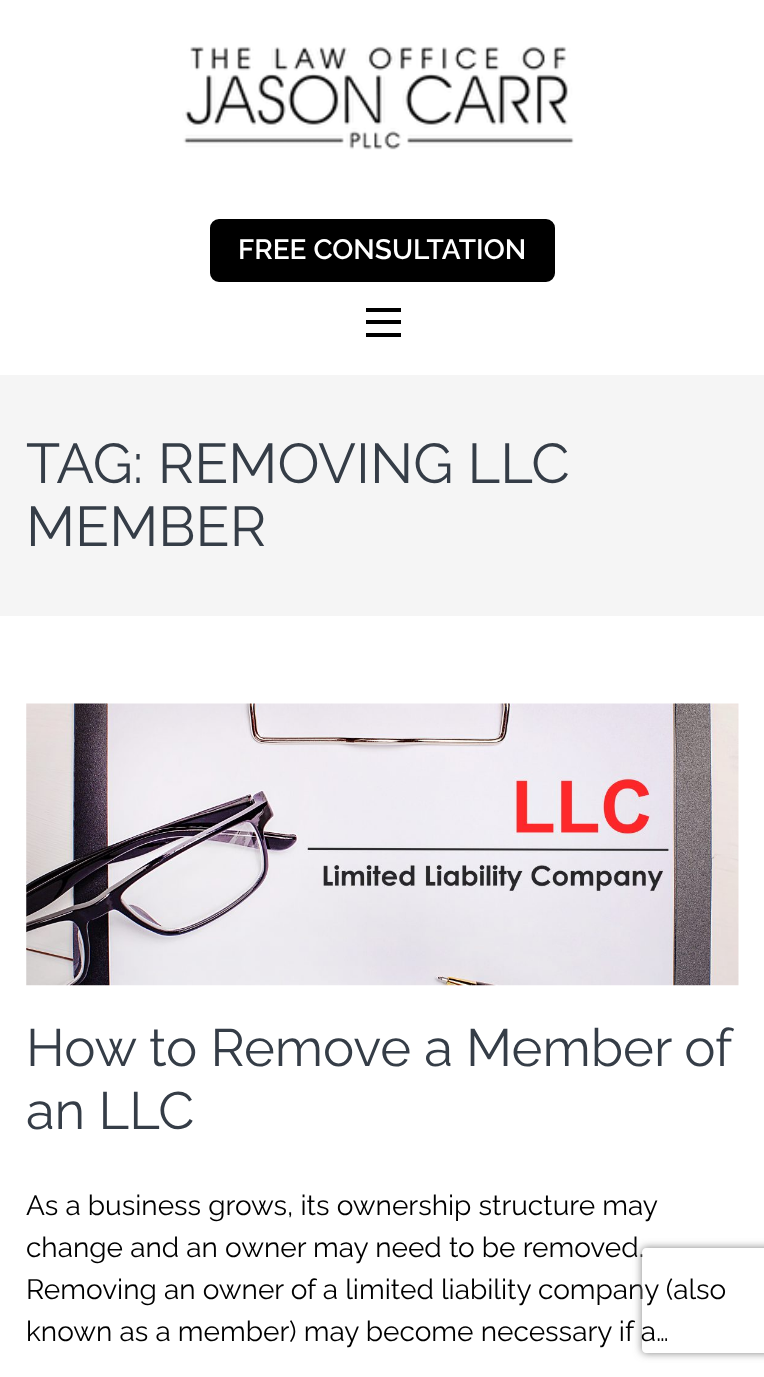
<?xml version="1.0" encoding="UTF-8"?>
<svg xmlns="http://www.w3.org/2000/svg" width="764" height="1377">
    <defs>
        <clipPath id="clip1"><path d="M 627 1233 H 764 V 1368 H 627 Z M 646 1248 H 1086 C 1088 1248 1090 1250 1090 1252 V 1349 C 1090 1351 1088 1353 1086 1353 H 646 C 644 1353 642 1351 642 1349 V 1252 C 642 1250 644 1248 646 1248 Z" clip-rule="evenodd"/></clipPath>
        <filter id="blur1" x="-50%" y="-200%" width="200%" height="500%"><feGaussianBlur stdDeviation="4.5"/></filter>
    </defs>
    <rect width="100%" height="100%" fill="#FFFFFF"/>
    <image x="182" y="46" width="392" height="104" href="img_01.png"/>
    <rect x="211" y="220" width="343" height="61" rx="8" fill="#000000" stroke="#000000" stroke-width="2"/>
    <text x="238" y="259" font-family="Raleway" font-size="28" font-weight="600" fill="#FFFFFF">FREE CONSULTATION</text>
    <rect x="366" y="308" width="35" height="4" fill="#000000"/>
    <rect x="366" y="320" width="35" height="4" fill="#000000"/>
    <rect x="366" y="333" width="35" height="4" fill="#000000"/>
    <rect x="0" y="375" width="764" height="241" fill="#F5F5F5"/>
    <text font-family="Raleway" font-size="56" fill="#353D47">
        <tspan x="26" y="483">TAG: REMOVING LLC</tspan>
        <tspan x="26" y="546">MEMBER</tspan>
    </text>
    <image x="26" y="703" width="713" height="283" href="img_02.png"/>
    <text font-family="Raleway" font-size="52.5" fill="#353D47">
        <tspan x="26" y="1066" word-spacing="-0.25">How to Remove a Member of</tspan>
        <tspan x="26" y="1129">an LLC</tspan>
    </text>
    <text font-family="Raleway" font-size="28" fill="#000000">
        <tspan x="26" y="1215">As a business grows, its ownership structure may</tspan>
        <tspan x="26" y="1257">change and an owner may need to be removed.</tspan>
        <tspan x="26" y="1299">Removing an owner of a limited liability company (also</tspan>
        <tspan x="26" y="1341">known as a member) may become necessary if a…</tspan>
    </text>
    <g clip-path="url(#clip1)">
        <rect x="642" y="1248" width="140" height="105" rx="4" fill="#808080" filter="url(#blur1)"/>
    </g>
</svg>
